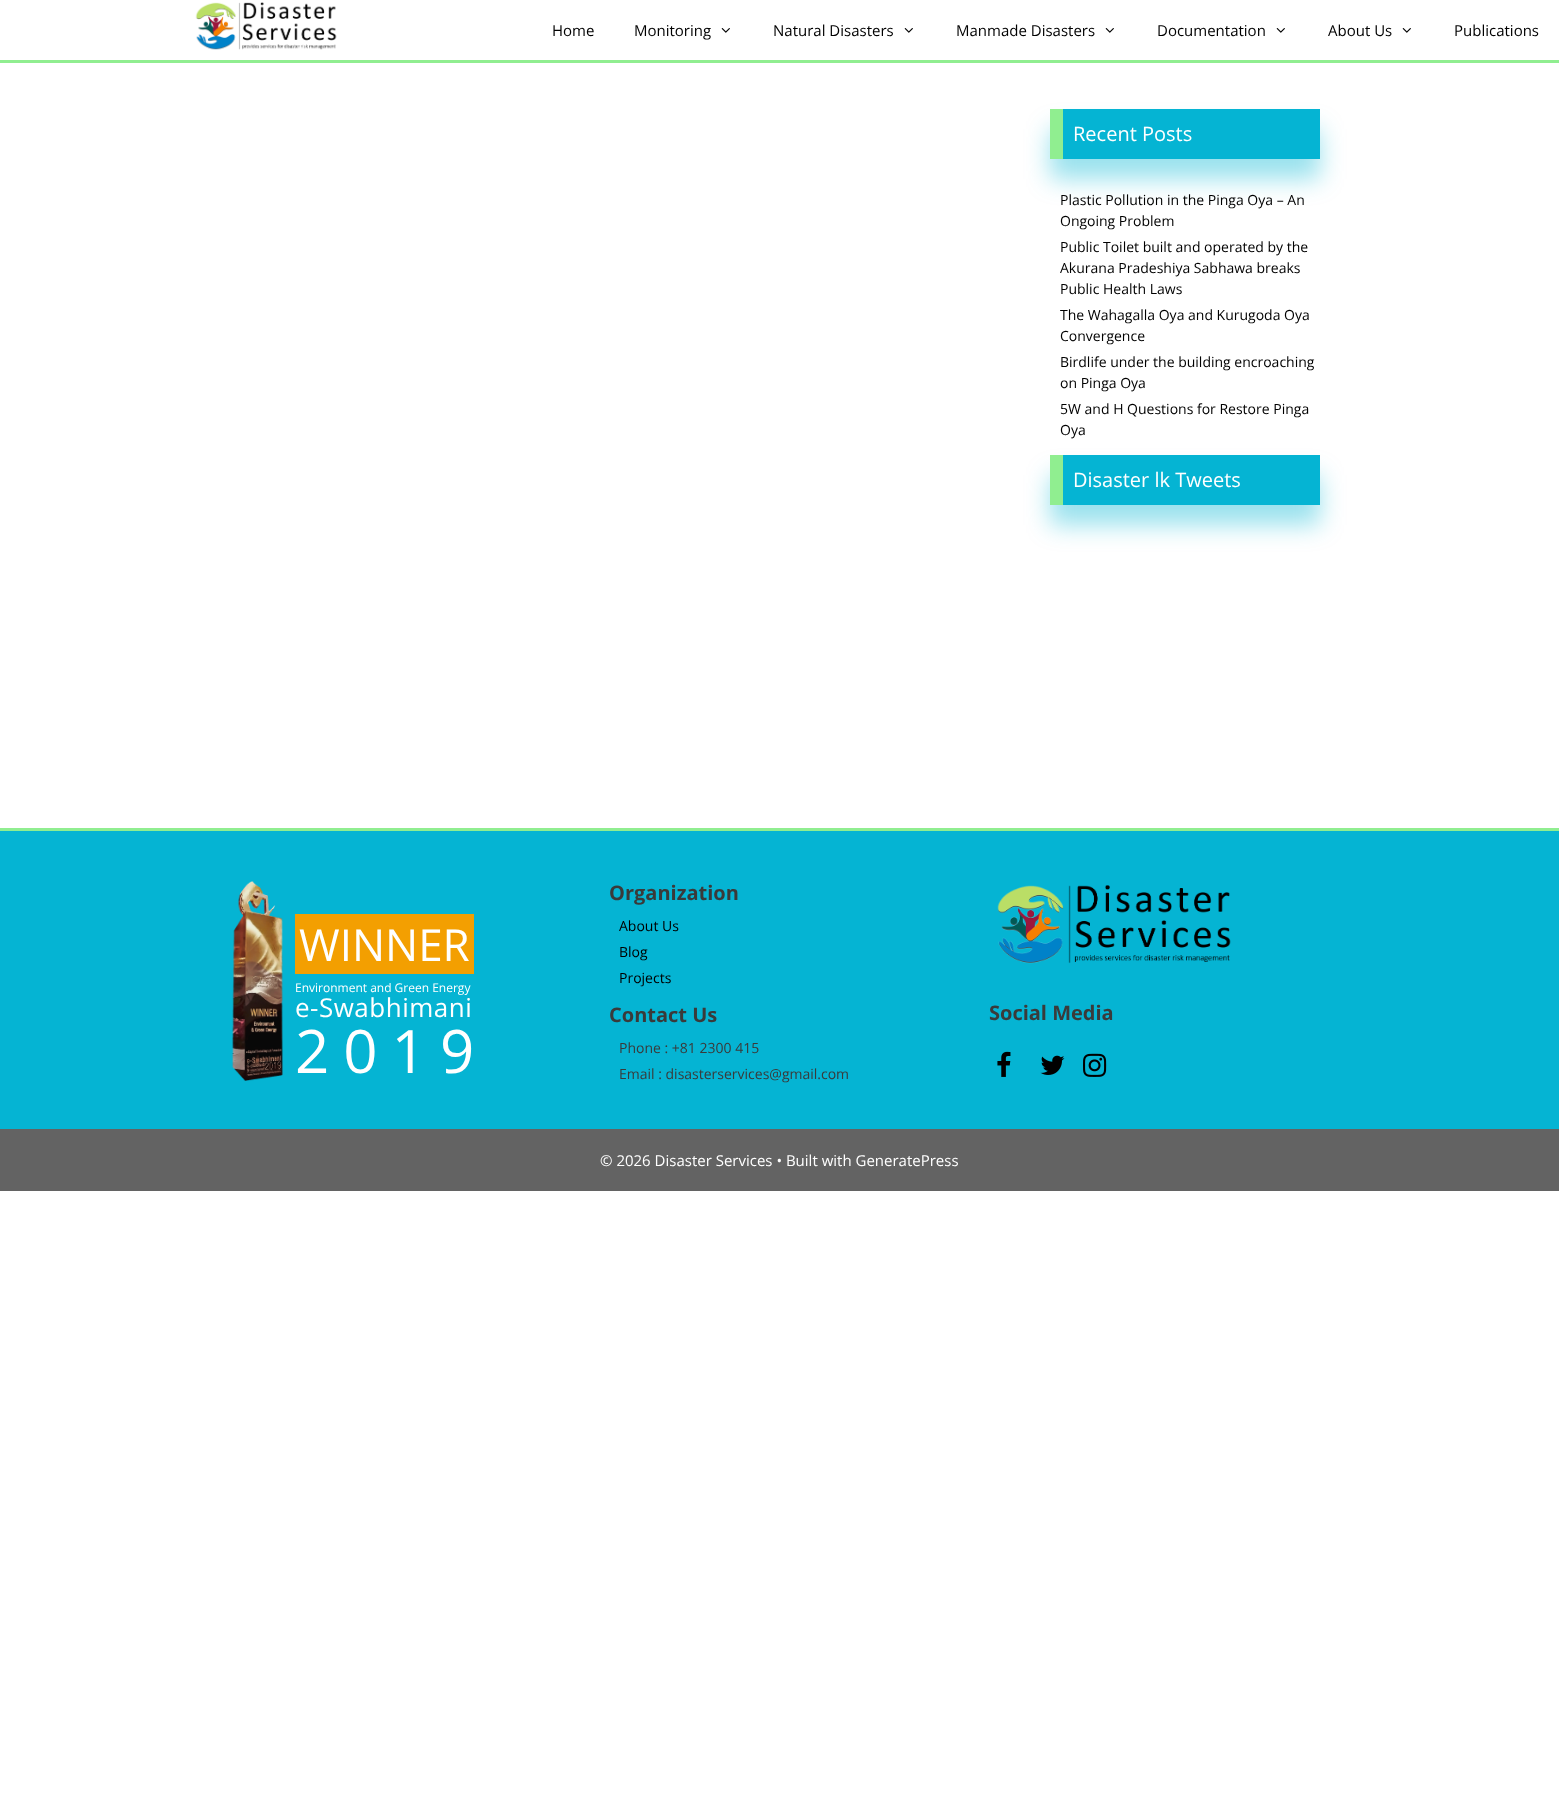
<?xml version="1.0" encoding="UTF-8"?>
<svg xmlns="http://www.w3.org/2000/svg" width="1559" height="1797">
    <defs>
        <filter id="blur1" x="-50%" y="-200%" width="200%" height="500%"><feGaussianBlur stdDeviation="12.5"/></filter>
    </defs>
    <rect width="100%" height="100%" fill="#FFFFFF"/>
    <rect x="0" y="60" width="1559" height="3" fill="#90EE90"/>
    <image x="195" y="2" width="142" height="48" href="img_01.png"/>
    <text x="552" y="36" font-family="Open Sans" font-size="15" fill="#000000">Home</text>
    <text x="634" y="36" font-family="Open Sans" font-size="15" fill="#000000">Monitoring</text>
    <image x="721" y="28" width="9" height="5" href="img_02.png"/>
    <text x="773" y="36" font-family="Open Sans" font-size="15" fill="#000000">Natural Disasters</text>
    <image x="904" y="28" width="9" height="5" href="img_02.png"/>
    <text x="956" y="36" font-family="Open Sans" font-size="15" fill="#000000">Manmade Disasters</text>
    <image x="1105" y="28" width="9" height="5" href="img_02.png"/>
    <text x="1157" y="36" font-family="Open Sans" font-size="15" fill="#000000">Documentation</text>
    <image x="1276" y="28" width="9" height="5" href="img_02.png"/>
    <text x="1328" y="36" font-family="Open Sans" font-size="15" fill="#000000">About Us</text>
    <image x="1402" y="28" width="9" height="5" href="img_02.png"/>
    <text x="1454" y="36" font-family="Open Sans" font-size="15" fill="#000000">Publications</text>
    <rect x="1050" y="129" width="270" height="50" fill="#05B4D3" fill-opacity="0.4" filter="url(#blur1)"/>
    <rect x="1063" y="109" width="257" height="50" fill="#05B4D3"/>
    <rect x="1050" y="109" width="13" height="50" fill="#90EE90"/>
    <text x="1073" y="141" font-family="Open Sans" font-size="20" fill="#FFFFFF">Recent Posts</text>
    <text font-family="Open Sans" font-size="14" fill="#000000">
        <tspan x="1060" y="205">Plastic Pollution in the Pinga Oya – An</tspan>
        <tspan x="1060" y="226">Ongoing Problem</tspan>
        <tspan x="1060" y="252">Public Toilet built and operated by the</tspan>
        <tspan x="1060" y="273">Akurana Pradeshiya Sabhawa breaks</tspan>
        <tspan x="1060" y="294">Public Health Laws</tspan>
        <tspan x="1060" y="320">The Wahagalla Oya and Kurugoda Oya</tspan>
        <tspan x="1060" y="341">Convergence</tspan>
        <tspan x="1060" y="367">Birdlife under the building encroaching</tspan>
        <tspan x="1060" y="388">on Pinga Oya</tspan>
        <tspan x="1060" y="414">5W and H Questions for Restore Pinga</tspan>
    </text>
    <rect x="1050" y="475" width="270" height="50" fill="#05B4D3" fill-opacity="0.4" filter="url(#blur1)"/>
    <text x="1060" y="435" font-family="Open Sans" font-size="14" fill="#000000">Oya</text>
    <rect x="1063" y="455" width="257" height="50" fill="#05B4D3"/>
    <rect x="1050" y="455" width="13" height="50" fill="#90EE90"/>
    <text x="1073" y="487" font-family="Open Sans" font-size="20" fill="#FFFFFF">Disaster lk Tweets</text>
    <rect x="0" y="828" width="1559" height="3" fill="#90EE90"/>
    <rect x="0" y="831" width="1559" height="298" fill="#05B4D3"/>
    <image x="232" y="881" width="51" height="200" href="img_03.png"/>
    <rect x="295" y="914" width="179" height="60" fill="#F39F01"/>
    <text x="299" y="961" font-family="Open Sans" font-size="44" fill="#FFFFFF">WINNER</text>
    <text x="295" y="992" font-family="Open Sans" font-size="12" fill="#FFFFFF">Environment and Green Energy</text>
    <text x="295" y="1017" font-family="Open Sans" font-size="26" letter-spacing="0.5" fill="#FFFFFF">e-Swabhimani</text>
    <text x="295" y="1073" font-family="Open Sans" font-size="60" letter-spacing="14" fill="#FFFFFF">2019</text>
    <text x="609" y="900" font-family="Open Sans" font-size="20" font-weight="700" fill="#3A3A3A">Organization</text>
    <text font-family="Open Sans" font-size="14" fill="#000000">
        <tspan x="619" y="931">About Us</tspan>
        <tspan x="619" y="957">Blog</tspan>
        <tspan x="619" y="983">Projects</tspan>
    </text>
    <text x="609" y="1022" font-family="Open Sans" font-size="20" font-weight="700" fill="#3A3A3A">Contact Us</text>
    <text font-family="Open Sans" font-size="14" fill="#3A3A3A">
        <tspan x="619" y="1053">Phone : +81 2300 415</tspan>
        <tspan x="619" y="1079">Email : disasterservices@gmail.com</tspan>
    </text>
    <image x="997" y="885" width="234" height="79" href="img_04.png"/>
    <text x="989" y="1020" font-family="Open Sans" font-size="20" font-weight="700" fill="#3A3A3A">Social Media</text>
    <image x="997" y="1051" width="14" height="26" href="img_05.png"/>
    <image x="1040" y="1055" width="25" height="20" href="img_06.png"/>
    <image x="1083" y="1053" width="24" height="24" href="img_07.png"/>
    <rect x="0" y="1129" width="1559" height="62" fill="#636363"/>
    <text x="600" y="1166" font-family="Open Sans" font-size="15" fill="#FFFFFF">© 2026 Disaster Services • Built with GeneratePress</text>
</svg>
